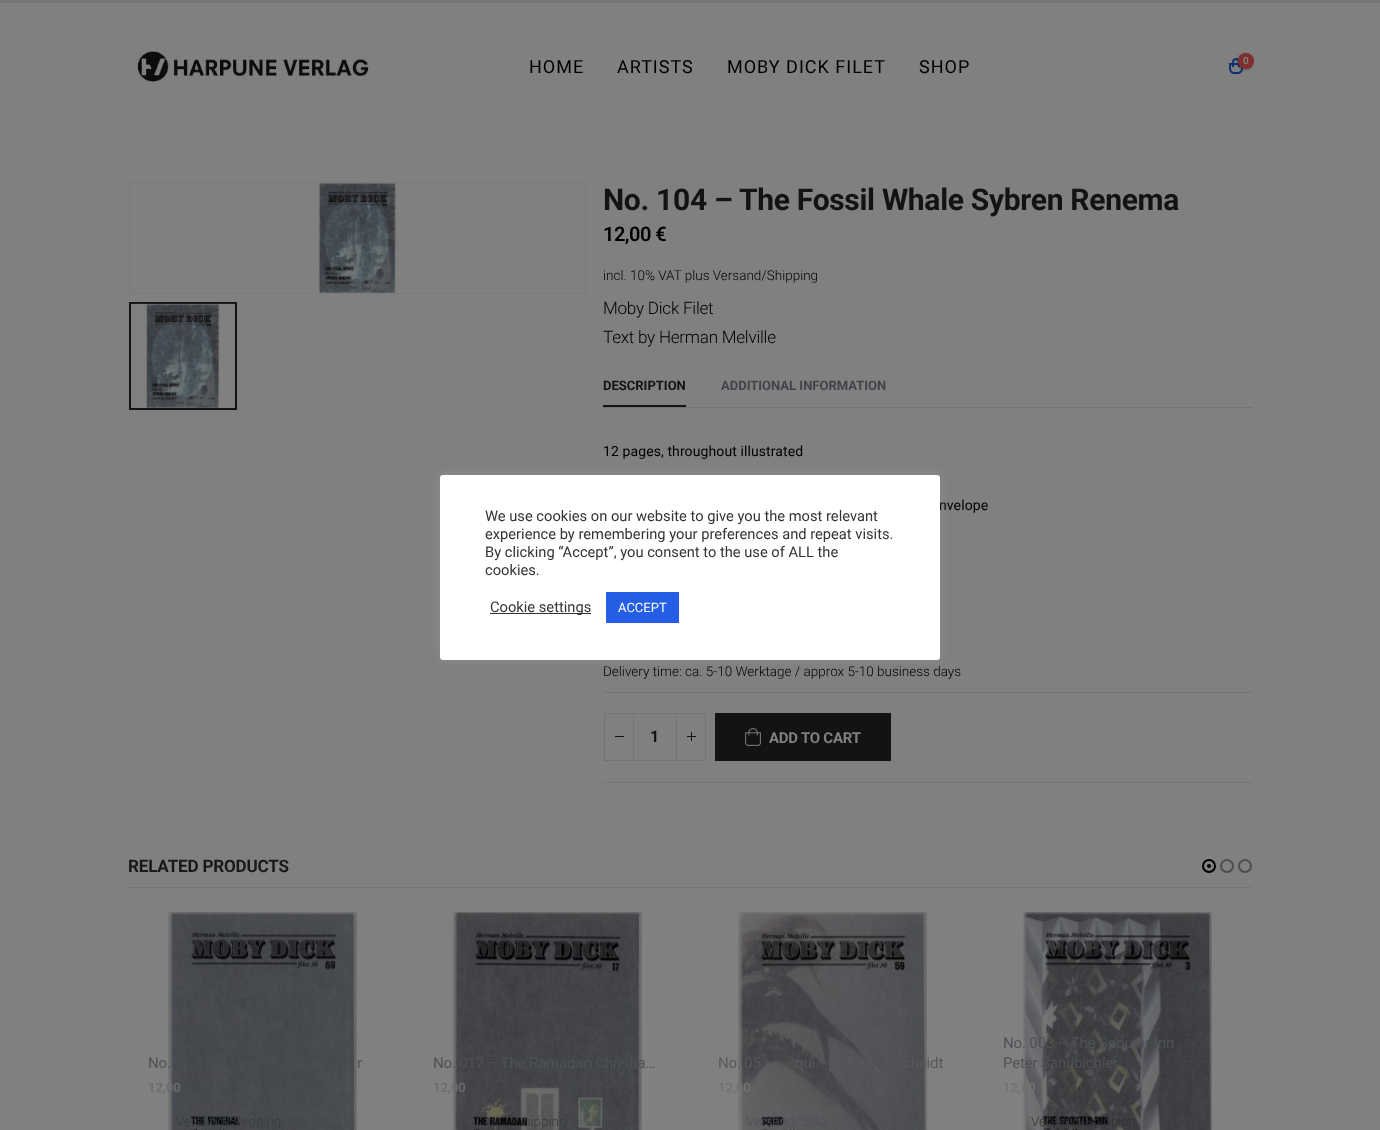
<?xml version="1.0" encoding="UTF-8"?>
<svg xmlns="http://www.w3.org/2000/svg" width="1380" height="1130">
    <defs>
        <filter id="blur1" x="-50%" y="-200%" width="200%" height="500%"><feGaussianBlur stdDeviation="1"/></filter>
        <filter id="blur2" x="-50%" y="-200%" width="200%" height="500%"><feGaussianBlur stdDeviation="5"/></filter>
    </defs>
    <rect width="100%" height="100%" fill="#808080"/>
    <rect x="0" y="0" width="1380" height="3" fill="#777777"/>
    <image x="137" y="51" width="232" height="31" href="img_01.png"/>
    <text x="529" y="73" font-family="Roboto" font-size="18" letter-spacing="1" fill="#000000">HOME</text>
    <text x="617" y="73" font-family="Roboto" font-size="18" letter-spacing="1" fill="#000000">ARTISTS</text>
    <text x="727" y="73" font-family="Roboto" font-size="18" letter-spacing="1" fill="#000000">MOBY DICK FILET</text>
    <text x="919" y="73" font-family="Roboto" font-size="18" letter-spacing="1" fill="#000000">SHOP</text>
    <path d="M 1230 64 H 1242 V 69 C 1242 71 1240 73 1238 73 H 1234 C 1232 73 1230 71 1230 69 Z" fill="none" stroke="#122F73" stroke-width="2"/>
    <path d="M 1236 58 C 1241 58 1240 64 1240 67 H 1232 C 1232 64 1231 58 1236 58 Z M 1236 60 C 1239 60 1238 65 1238 67 H 1234 C 1234 65 1233 60 1236 60 Z" fill="#122F73" fill-rule="evenodd"/>
    <rect x="1237" y="54" width="16" height="16" rx="8" fill="#000000" fill-opacity="0.3" filter="url(#blur1)"/>
    <circle cx="1246" cy="61" r="8" fill="#802E2E"/>
    <text x="1243" y="64" font-family="Roboto" font-size="10" font-weight="600" fill="#808080">0</text>
    <rect x="129.5" y="182.5" width="456" height="111" fill="none" stroke="#7A7A7A"/>
    <image x="318" y="183" width="79" height="110" href="img_02.png"/>
    <rect x="130" y="303" width="106" height="106" fill="none" stroke="#111315" stroke-width="2"/>
    <image x="131" y="303" width="104" height="105" href="img_03.png"/>
    <text x="603" y="210" font-family="Roboto" font-size="30" font-weight="700" letter-spacing="-0.3" fill="#111315">No. 104 – The Fossil Whale Sybren Renema</text>
    <text x="603" y="241" font-family="Roboto" font-size="20" font-weight="600" letter-spacing="-0.5" fill="#000000">12,00 €</text>
    <text x="603" y="280" font-family="Roboto" font-size="13.5" font-weight="300" fill="#000000">incl. 10% VAT plus Versand/Shipping</text>
    <text font-family="Roboto" font-size="17.1" font-weight="300" letter-spacing="-0.25" fill="#000000">
        <tspan x="603" y="314">Moby Dick Filet</tspan>
        <tspan x="603" y="343">Text by Herman Melville</tspan>
    </text>
    <rect x="603" y="405" width="83" height="2" fill="#111315"/>
    <text x="603" y="390" font-family="Roboto" font-size="13" font-weight="700" fill="#111315">DESCRIPTION</text>
    <text x="721" y="390" font-family="Roboto" font-size="13" font-weight="700" fill="#414349">ADDITIONAL INFORMATION</text>
    <rect x="603" y="407" width="649" height="1" fill="#747474"/>
    <text x="603" y="456" font-family="Roboto" font-size="14" letter-spacing="0.1" fill="#000000">12 pages, throughout illustrated</text>
    <text x="939" y="510" font-family="Roboto" font-size="14" letter-spacing="0.1" fill="#000000">nvelope</text>
    <text x="603" y="676" font-family="Roboto" font-size="13.5" font-weight="300" fill="#000000">Delivery time: ca. 5-10 Werktage / approx 5-10 business days</text>
    <rect x="603" y="692" width="649" height="1" fill="#747474"/>
    <rect x="603" y="782" width="649" height="1" fill="#747474"/>
    <rect x="633" y="713" width="44" height="1" fill="#747474"/>
    <rect x="633" y="760" width="44" height="1" fill="#747474"/>
    <rect x="604.5" y="713.5" width="29" height="47" fill="none" stroke="#747474"/>
    <rect x="615" y="736" width="9" height="1" fill="#111315"/>
    <text x="650" y="742" font-family="Roboto" font-size="16" font-weight="700" fill="#111315">1</text>
    <rect x="676.5" y="713.5" width="29" height="47" fill="none" stroke="#747474"/>
    <rect x="687" y="736" width="9" height="1" fill="#111315"/>
    <rect x="691" y="732" width="1" height="9" fill="#111315"/>
    <rect x="715" y="713" width="176" height="48" fill="#111315"/>
    <image x="745" y="728" width="16" height="18" href="img_04.png"/>
    <text x="769" y="743" font-family="Roboto" font-size="15" font-weight="700" letter-spacing="-0.25" fill="#808080">ADD TO CART</text>
    <rect x="128" y="887" width="1124" height="1" fill="#767676"/>
    <text x="128" y="872" font-family="Roboto" font-size="17.1" font-weight="700" letter-spacing="-0.2" fill="#191919">RELATED PRODUCTS</text>
    <circle cx="1209" cy="866" r="6" fill="none" stroke="#000000" stroke-width="2"/>
    <circle cx="1209" cy="866" r="2" fill="#000000"/>
    <circle cx="1227" cy="866" r="6" fill="none" stroke="#4D4D4D" stroke-width="2"/>
    <circle cx="1245" cy="866" r="6" fill="none" stroke="#4D4D4D" stroke-width="2"/>
    <image x="168" y="912" width="189" height="218" href="img_05.png"/>
    <text x="148" y="1068" font-family="Roboto" font-size="15" letter-spacing="-0.15" fill="#4E5155">No.</text>
    <text x="357" y="1068" font-family="Roboto" font-size="15" letter-spacing="-0.15" fill="#4E5155">r</text>
    <text x="148" y="1092" font-family="Roboto" font-size="13" font-weight="600" fill="#6B6C6E">12,00</text>
    <text x="176" y="1126" font-family="Roboto" font-size="13.5" font-weight="300" fill="#393B3F">Versand/Shipping</text>
    <image x="453" y="912" width="189" height="218" href="img_06.png"/>
    <text x="433" y="1068" font-family="Roboto" font-size="15" letter-spacing="-0.15" fill="#4E5155">No. 017 – The Ramadan Christia…</text>
    <text x="433" y="1092" font-family="Roboto" font-size="13" font-weight="600" fill="#6B6C6E">12,00</text>
    <text x="523" y="1126" font-family="Roboto" font-size="13.5" font-weight="300" fill="#393B3F">hipping</text>
    <image x="738" y="912" width="189" height="218" href="img_07.png"/>
    <text x="718" y="1068" font-family="Roboto" font-size="15" letter-spacing="-0.15" fill="#57585A">No. 05</text>
    <text x="795" y="1068" font-family="Roboto" font-size="15" letter-spacing="-0.15" fill="#57585A">qui</text>
    <text x="903" y="1068" font-family="Roboto" font-size="15" letter-spacing="-0.15" fill="#57585A">cheidt</text>
    <text x="718" y="1092" font-family="Roboto" font-size="13" font-weight="600" fill="#727272">12,00</text>
    <text x="746" y="1126" font-family="Roboto" font-size="13.5" font-weight="300" fill="#4E5155">Versand/Ship</text>
    <image x="1023" y="912" width="189" height="218" href="img_08.png"/>
    <text font-family="Roboto" font-size="15" letter-spacing="-0.15" fill="#4E5155">
        <tspan x="1003" y="1048">No. 003 – The Spouter-Inn</tspan>
        <tspan x="1003" y="1068">Peter Sandbichler</tspan>
    </text>
    <text x="1003" y="1092" font-family="Roboto" font-size="13" font-weight="600" fill="#727272">12,00</text>
    <text x="1031" y="1126" font-family="Roboto" font-size="13.5" font-weight="300" fill="#343436">Versand/Shipping</text>
    <rect x="440" y="474" width="500" height="185" rx="3" fill="#ACABAB" fill-opacity="0.3" filter="url(#blur2)"/>
    <rect x="440" y="475" width="500" height="185" rx="3" fill="#FFFFFF"/>
    <text font-family="Roboto" font-size="14.7" fill="#343436">
        <tspan x="485" y="521">We use cookies on our website to give you the most relevant</tspan>
        <tspan x="485" y="539">experience by remembering your preferences and repeat visits.</tspan>
        <tspan x="485" y="557">By clicking “Accept”, you consent to the use of ALL the</tspan>
        <tspan x="485" y="575">cookies.</tspan>
    </text>
    <rect x="490" y="613" width="101" height="1" fill="#333333"/>
    <text x="490" y="612" font-family="Roboto" font-size="14.7" fill="#343436">Cookie settings</text>
    <rect x="606" y="592" width="73" height="31" fill="#245EE5"/>
    <text x="618" y="612" font-family="Roboto" font-size="13" fill="#FFFFFF">ACCEPT</text>
</svg>
